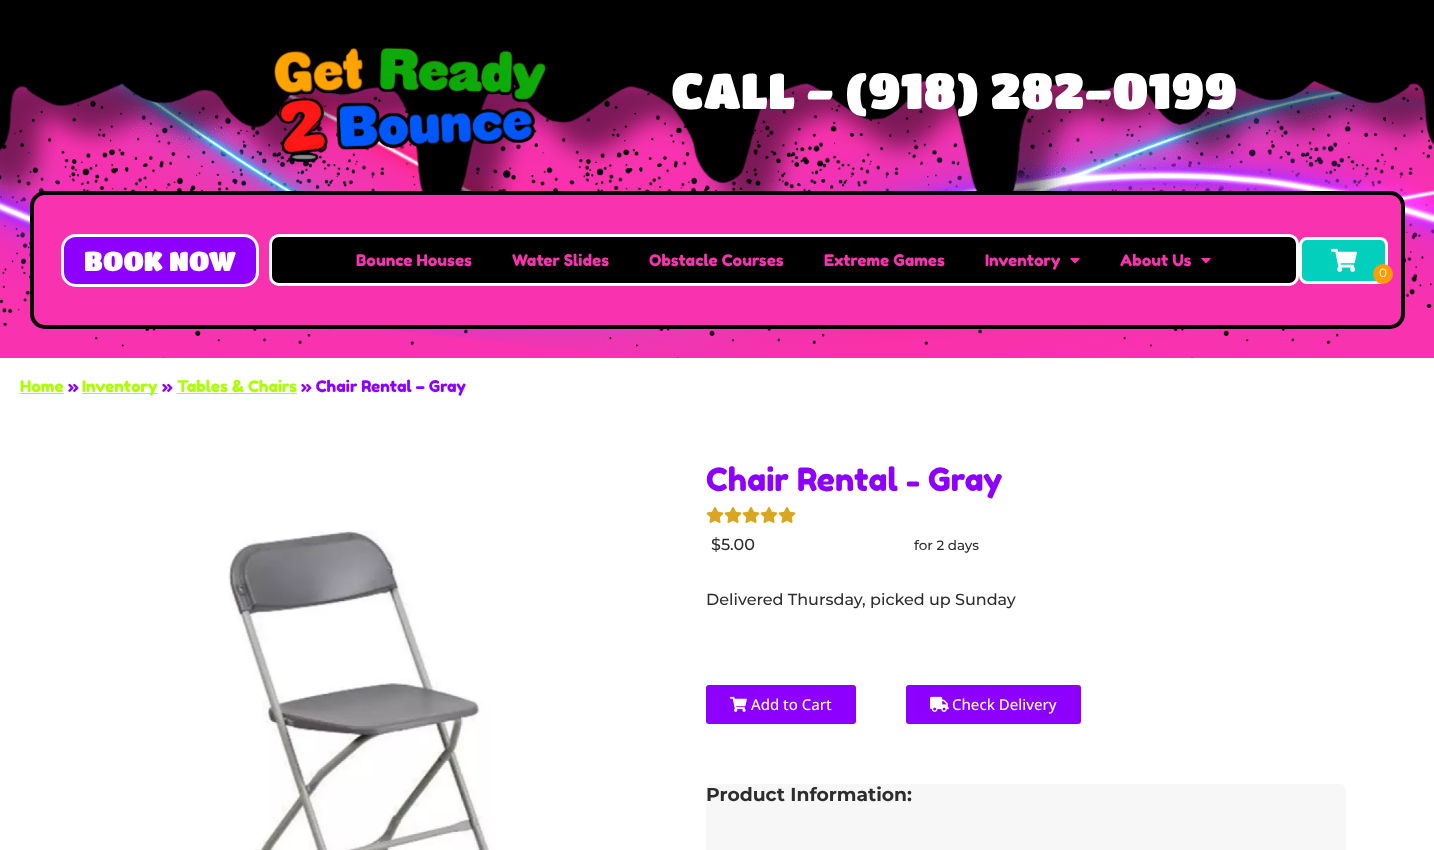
<?xml version="1.0" encoding="UTF-8"?>
<svg xmlns="http://www.w3.org/2000/svg" width="1434" height="850">
    <rect width="100%" height="100%" fill="#FFFFFF"/>
    <image x="0" y="0" width="1434" height="358" href="img_01.png"/>
    <image x="274" y="47" width="272" height="116" href="img_02.png"/>
    <text x="671" y="109" font-family="Titan One" font-size="50" fill="#FFFFFF">CALL - (918) 282-0199</text>
    <rect x="32" y="193" width="1371" height="134" rx="13" fill="#F933AF" stroke="#000000" stroke-width="4"/>
    <rect x="62.5" y="235.5" width="195" height="50" rx="13.5" fill="#8D00FF" stroke="#FFFFFF" stroke-width="3"/>
    <text x="84" y="271" font-family="Titan One" font-size="27" fill="#FFFFFF">BOOK NOW</text>
    <rect x="270.5" y="235.5" width="1027" height="49" rx="8.5" fill="#000000" stroke="#FFFFFF" stroke-width="3"/>
    <text x="356" y="266" font-family="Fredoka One" font-size="16" fill="#F933AF">Bounce Houses</text>
    <text x="512" y="266" font-family="Fredoka One" font-size="16" fill="#F933AF">Water Slides</text>
    <text x="649" y="266" font-family="Fredoka One" font-size="16" fill="#F933AF">Obstacle Courses</text>
    <text x="824" y="266" font-family="Fredoka One" font-size="16" fill="#F933AF">Extreme Games</text>
    <text x="985" y="266" font-family="Fredoka One" font-size="16" fill="#F933AF">Inventory</text>
    <image x="1070" y="258" width="10" height="6" href="img_03.png"/>
    <text x="1120" y="266" font-family="Fredoka One" font-size="16" fill="#F933AF">About Us</text>
    <image x="1201" y="258" width="10" height="6" href="img_03.png"/>
    <rect x="1300.5" y="238.5" width="86" height="44" rx="6.5" fill="#02D0BD" stroke="#FFFFFF" stroke-width="3"/>
    <image x="1331" y="248" width="26" height="24" href="img_04.png"/>
    <circle cx="1383" cy="274" r="10" fill="#FC9E01"/>
    <text x="1379" y="277" font-family="Montserrat" font-size="12" fill="#FFFFFF">0</text>
    <text x="20" y="392" font-family="Fredoka One" font-size="16" fill="#AAFF00">Home</text>
    <rect x="20" y="393" width="44" height="1" fill="#AAFF00"/>
    <text x="68" y="392" font-family="Fredoka One" font-size="16" fill="#8D00FF">»</text>
    <rect x="82" y="393" width="76" height="1" fill="#AAFF00"/>
    <text x="82" y="392" font-family="Fredoka One" font-size="16" fill="#AAFF00">Inventory</text>
    <text x="162" y="392" font-family="Fredoka One" font-size="16" fill="#8D00FF">»</text>
    <text x="177" y="392" font-family="Fredoka One" font-size="16" fill="#AAFF00">Tables &amp; Chairs</text>
    <rect x="177" y="393" width="120" height="1" fill="#AAFF00"/>
    <text x="301" y="392" font-family="Fredoka One" font-size="16" fill="#8D00FF">» Chair Rental – Gray</text>
    <image x="228" y="530" width="263" height="320" href="img_05.png"/>
    <text x="706" y="491" font-family="Fredoka One" font-size="32" fill="#8D00FF">Chair Rental - Gray</text>
    <image x="706" y="507" width="18" height="16" href="img_06.png"/>
    <image x="724" y="507" width="18" height="16" href="img_06.png"/>
    <image x="742" y="507" width="18" height="16" href="img_06.png"/>
    <image x="760" y="507" width="18" height="16" href="img_06.png"/>
    <image x="778" y="507" width="18" height="16" href="img_06.png"/>
    <text x="711" y="550" font-family="Montserrat" font-size="16" font-weight="500" fill="#2D2D2D">$5.00</text>
    <text x="914" y="550" font-family="Montserrat" font-size="13.5" font-weight="500" fill="#2D2D2D">for 2 days</text>
    <text x="706" y="605" font-family="Montserrat" font-size="16" font-weight="500" fill="#2D2D2D">Delivered Thursday, picked up Sunday</text>
    <rect x="706" y="685" width="150" height="39" rx="3" fill="#8D00FF"/>
    <image x="730" y="696" width="17" height="16" href="img_07.png"/>
    <text x="751" y="710" font-family="Open Sans" font-size="15" font-weight="500" fill="#FFFFFF">Add to Cart</text>
    <rect x="906" y="685" width="175" height="39" rx="3" fill="#8D00FF"/>
    <image x="930" y="696" width="19" height="16" href="img_08.png"/>
    <text x="952" y="710" font-family="Open Sans" font-size="15" font-weight="500" fill="#FFFFFF">Check Delivery</text>
    <rect x="706" y="784" width="640" height="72" rx="6" fill="#F7F7F7"/>
    <text x="706" y="801" font-family="Montserrat" font-size="18.75" font-weight="700" fill="#2D2D2D">Product Information:</text>
</svg>
